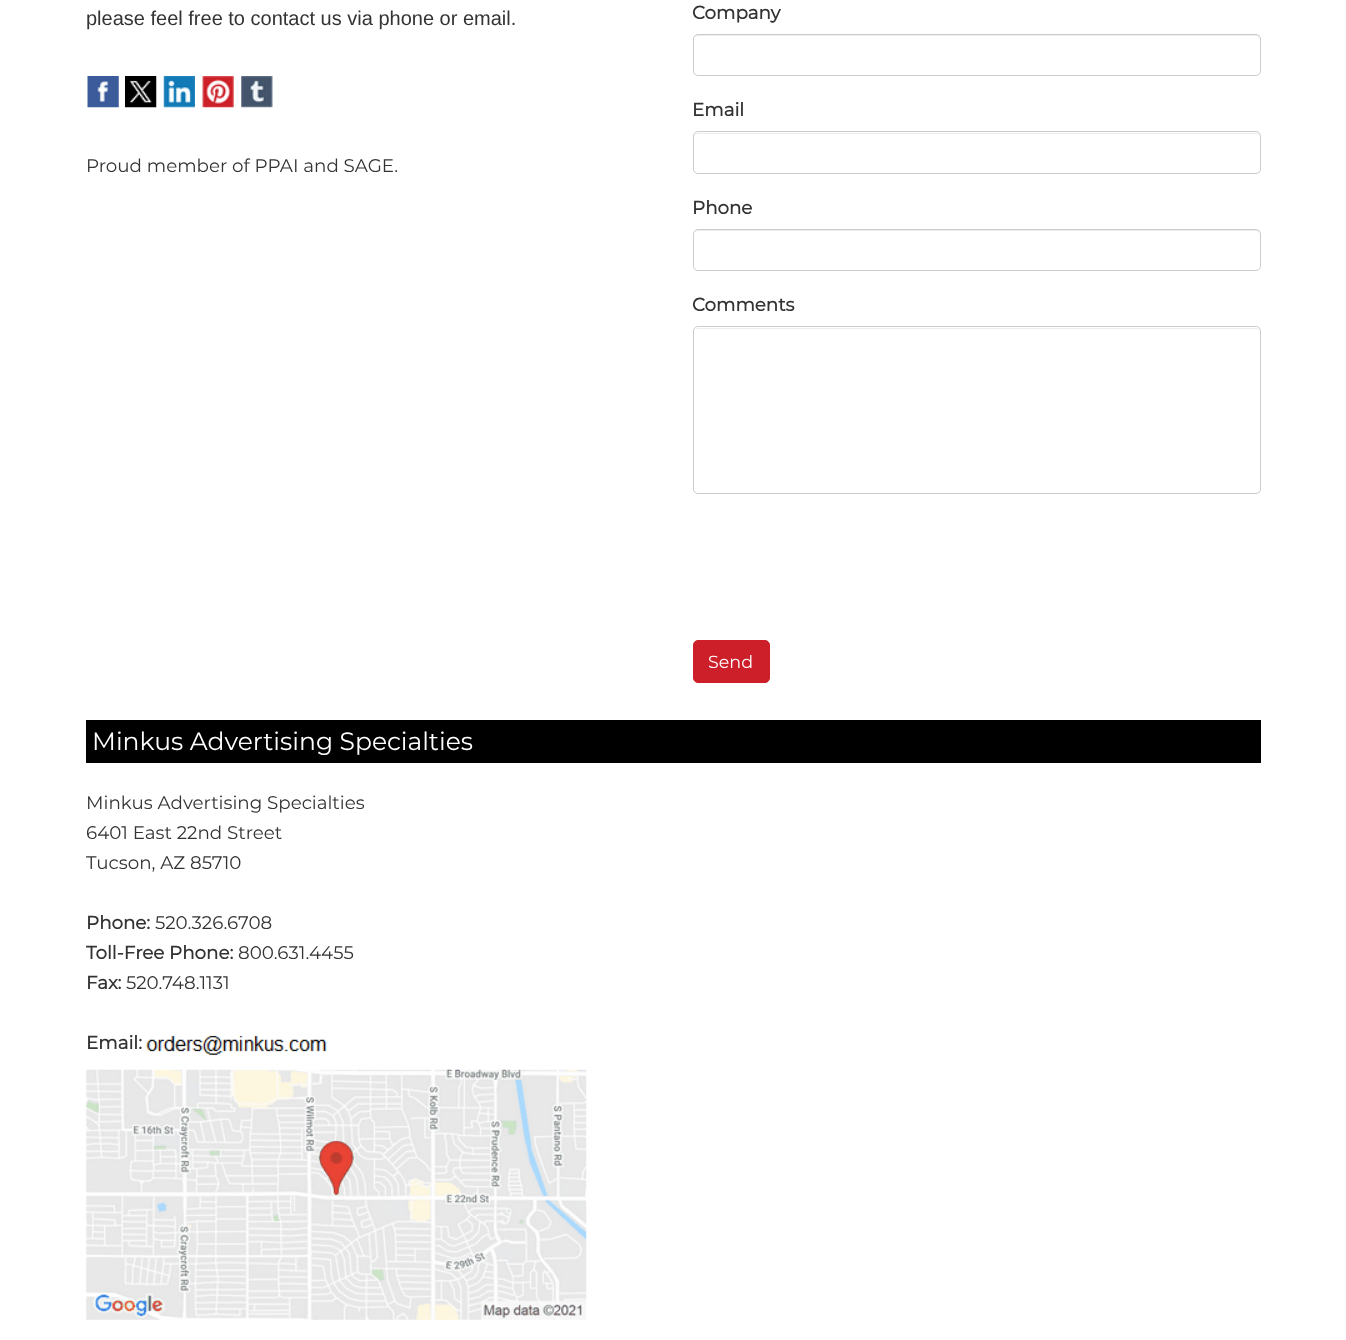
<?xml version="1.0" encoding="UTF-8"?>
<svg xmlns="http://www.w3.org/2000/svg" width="1346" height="1340">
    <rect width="100%" height="100%" fill="#FFFFFF"/>
    <text x="86" y="25" font-family="Liberation Sans" font-size="20" fill="#333333">please feel free to contact us via phone or email.</text>
    <image x="87" y="76" width="32" height="32" href="img_01.png"/>
    <image x="125" y="76" width="32" height="32" href="img_02.png"/>
    <image x="163" y="76" width="32" height="32" href="img_03.png"/>
    <image x="202" y="76" width="32" height="32" href="img_04.png"/>
    <image x="241" y="76" width="32" height="32" href="img_05.png"/>
    <text x="86" y="172" font-family="Montserrat" font-size="18.3" font-weight="100" fill="#333333">Proud member of PPAI and SAGE.</text>
    <text x="692" y="19" font-family="Montserrat" font-size="18.3" font-weight="700" fill="#333333">Company</text>
    <path d="M 698 36 H 1256 C 1258 36 1260 38 1260 40 C 1260 37 1259 35 1256 35 H 698 C 695 35 694 37 694 40 C 694 38 695 36 698 36 Z" fill="#ECECEC"/>
    <rect x="693.5" y="34.5" width="567" height="41" rx="4.5" fill="none" stroke="#CCCCCC"/>
    <text x="692" y="116" font-family="Montserrat" font-size="18.3" font-weight="700" fill="#333333">Email</text>
    <path d="M 698 134 H 1256 C 1258 134 1260 135 1260 138 C 1260 135 1259 133 1256 133 H 698 C 695 133 694 135 694 138 C 694 135 695 134 698 134 Z" fill="#ECECEC"/>
    <rect x="693.5" y="131.5" width="567" height="42" rx="4.5" fill="none" stroke="#CCCCCC"/>
    <text x="692" y="214" font-family="Montserrat" font-size="18.3" font-weight="700" fill="#333333">Phone</text>
    <path d="M 698 231 H 1256 C 1258 231 1260 233 1260 235 C 1260 232 1259 230 1256 230 H 698 C 695 230 694 232 694 235 C 694 233 695 231 698 231 Z" fill="#ECECEC"/>
    <rect x="693.5" y="229.5" width="567" height="41" rx="4.5" fill="none" stroke="#CCCCCC"/>
    <text x="692" y="311" font-family="Montserrat" font-size="18.3" font-weight="700" fill="#333333">Comments</text>
    <path d="M 698 329 H 1256 C 1258 329 1260 330 1260 332 C 1260 330 1258 328 1256 328 H 698 C 696 328 695 329 694 330 C 695 329 696 329 698 329 Z" fill="#ECECEC"/>
    <rect x="693.5" y="326.5" width="567" height="167" rx="4.5" fill="none" stroke="#CCCCCC"/>
    <rect x="693.5" y="640.5" width="76" height="42" rx="4.5" fill="#CD1F29" stroke="#CD1F29"/>
    <text x="708" y="668" font-family="Montserrat" font-size="17.5" font-weight="100" fill="#FFFFFF">Send</text>
    <rect x="86" y="720" width="1175" height="43" fill="#000000"/>
    <text x="92" y="750" font-family="Montserrat" font-size="25" font-weight="100" fill="#FFFFFF">Minkus Advertising Specialties</text>
    <text font-family="Montserrat" font-size="18.3" font-weight="100" fill="#333333">
        <tspan x="86" y="809">Minkus Advertising Specialties</tspan>
        <tspan x="86" y="839">6401 East 22nd Street</tspan>
        <tspan x="86" y="869">Tucson, AZ 85710</tspan>
    </text>
    <text x="86" y="929" font-family="Montserrat" font-size="18.3" font-weight="700" fill="#333333">Phone:</text>
    <text x="155" y="929" font-family="Montserrat" font-size="18.3" font-weight="100" fill="#333333">520.326.6708</text>
    <text x="86" y="959" font-family="Montserrat" font-size="18.3" font-weight="700" fill="#333333">Toll-Free Phone:</text>
    <text x="238" y="959" font-family="Montserrat" font-size="18.3" font-weight="100" fill="#333333">800.631.4455</text>
    <text x="86" y="989" font-family="Montserrat" font-size="18.3" font-weight="700" fill="#333333">Fax:</text>
    <text x="126" y="989" font-family="Montserrat" font-size="18.3" font-weight="100" fill="#333333">520.748.1131</text>
    <text x="86" y="1049" font-family="Montserrat" font-size="18.3" font-weight="700" fill="#333333">Email:</text>
    <image x="146" y="1035" width="181" height="20" href="img_06.png"/>
    <image x="86" y="1069" width="501" height="251" href="img_07.png"/>
</svg>
